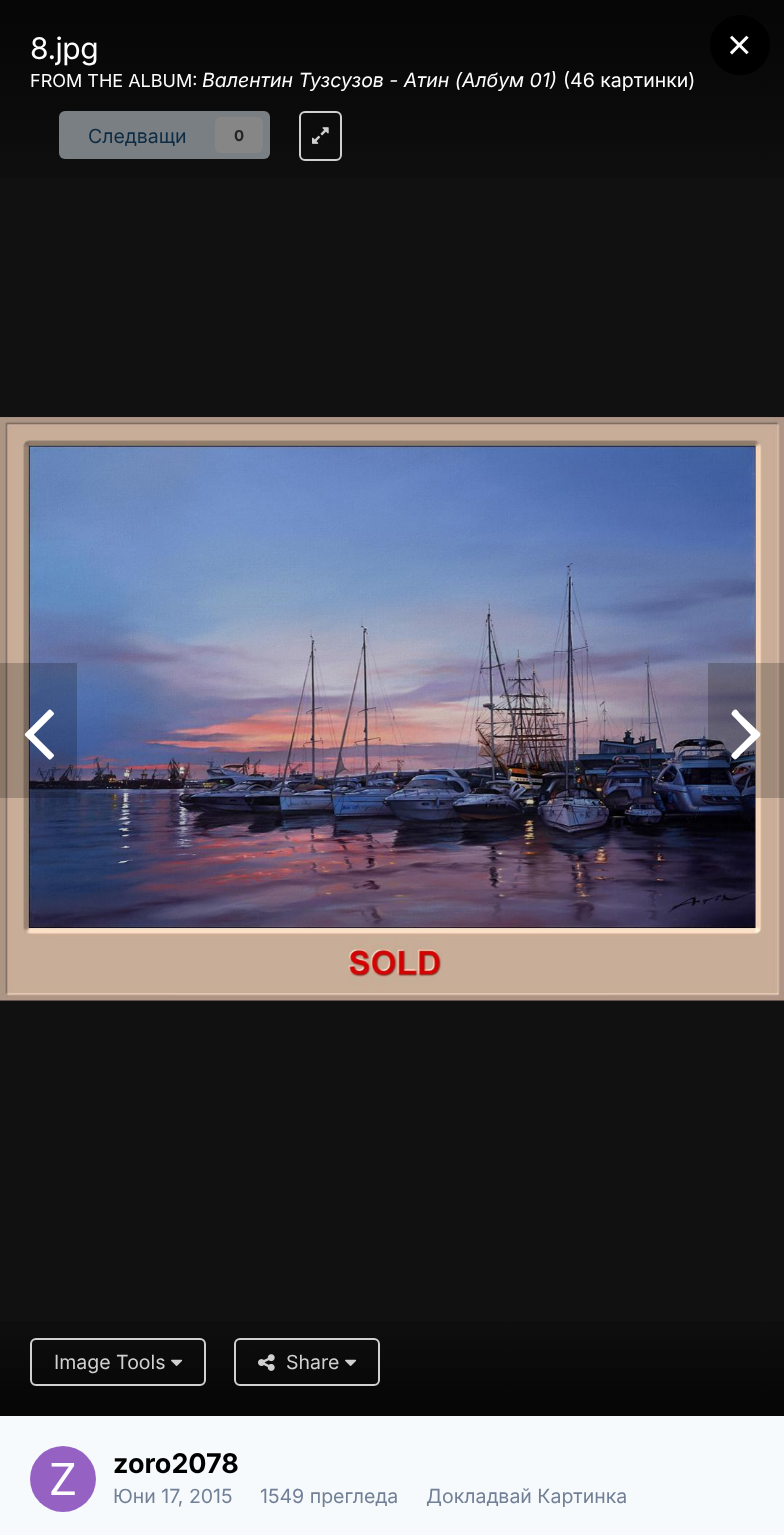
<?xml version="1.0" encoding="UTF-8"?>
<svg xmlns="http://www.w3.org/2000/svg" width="784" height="1535">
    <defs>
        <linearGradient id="g1" gradientUnits="userSpaceOnUse" x1="392" y1="0" x2="392" y2="225"><stop offset="0" stop-color="#050505"/><stop offset="1" stop-color="#111111"/></linearGradient>
        <linearGradient id="g2" gradientUnits="userSpaceOnUse" x1="392" y1="1296" x2="392" y2="1416"><stop offset="0" stop-color="#111111"/><stop offset="1" stop-color="#050505"/></linearGradient>
    </defs>
    <rect width="100%" height="100%" fill="#111111"/>
    <rect x="0" y="0" width="784" height="178" fill="url(#g1)"/>
    <text x="30" y="59" font-family="Inter" font-size="30" letter-spacing="-0.5" fill="#FFFFFF">8.jpg</text>
    <text x="30" y="87" font-family="Inter" font-size="18" fill="#FFFFFF">FROM THE ALBUM:</text>
    <text x="202" y="87" font-family="Inter" font-size="19.5" font-style="italic" fill="#FFFFFF">Валентин Тузсузов - Атин (Албум 01)</text>
    <text x="563" y="87" font-family="Inter" font-size="19.5" fill="#FFFFFF">(46 картинки)</text>
    <rect x="59" y="111" width="211" height="48" rx="6" fill="#7A7F83"/>
    <text x="88" y="143" font-family="Inter" font-size="19.5" fill="#0D2C43">Следващи</text>
    <rect x="215" y="117" width="48" height="36" rx="6" fill="#868686"/>
    <text x="234" y="141" font-family="Inter" font-size="15" font-weight="700" fill="#212427">0</text>
    <rect x="300" y="112" width="41" height="48" rx="5" fill="none" stroke="#D0D0D0" stroke-width="2"/>
    <image x="312" y="127" width="17" height="17" href="img_01.png"/>
    <rect x="0" y="1321" width="784" height="95" fill="url(#g2)"/>
    <rect x="31" y="1339" width="174" height="46" rx="5" fill="none" stroke="#D0D0D0" stroke-width="2"/>
    <text x="54" y="1369" font-family="Inter" font-size="19.5" fill="#D0D0D0">Image Tools</text>
    <image x="171" y="1359" width="12" height="7" href="img_02.png"/>
    <rect x="235" y="1339" width="144" height="46" rx="5" fill="none" stroke="#D0D0D0" stroke-width="2"/>
    <image x="258" y="1354" width="17" height="17" href="img_03.png"/>
    <text x="286" y="1369" font-family="Inter" font-size="19.5" fill="#D0D0D0">Share</text>
    <image x="345" y="1359" width="12" height="7" href="img_02.png"/>
    <rect x="0" y="417" width="784" height="584" fill="#222222"/>
    <image x="0" y="417" width="784" height="584" href="img_04.png"/>
    <rect x="0" y="663" width="77" height="135" fill="#000000" fill-opacity="0.2"/>
    <image x="24" y="709" width="30" height="51" href="img_05.png"/>
    <rect x="708" y="663" width="76" height="135" fill="#000000" fill-opacity="0.2"/>
    <path d="M 760 733 C 762 736 756 739 756 740 L 740 755 C 740 755 736 761 734 759 C 733 758 730 756 732 754 L 751 735 L 735 718 C 732 715 730 714 733 711 C 736 708 737 710 740 714 Z" fill="#FFFFFF"/>
    <rect x="0" y="1416" width="784" height="119" fill="#F7FAFC"/>
    <circle cx="63" cy="1479" r="33" fill="#FFFFFF"/>
    <image x="30" y="1446" width="66" height="66" href="img_06.png"/>
    <text x="113" y="1473" font-family="Inter" font-size="27" font-weight="700" fill="#000000">zoro2078</text>
    <text x="113" y="1503" font-family="Inter" font-size="19.5" fill="#718096">Юни 17, 2015</text>
    <text x="260" y="1503" font-family="Inter" font-size="19.5" fill="#718096">1549 прегледа</text>
    <text x="426" y="1503" font-family="Inter" font-size="19.5" fill="#718096">Докладвай Картинка</text>
    <circle cx="740" cy="45" r="30" fill="#000000"/>
    <text x="727" y="59" font-family="Liberation Sans" font-size="42" fill="#FFFFFF">×</text>
</svg>
